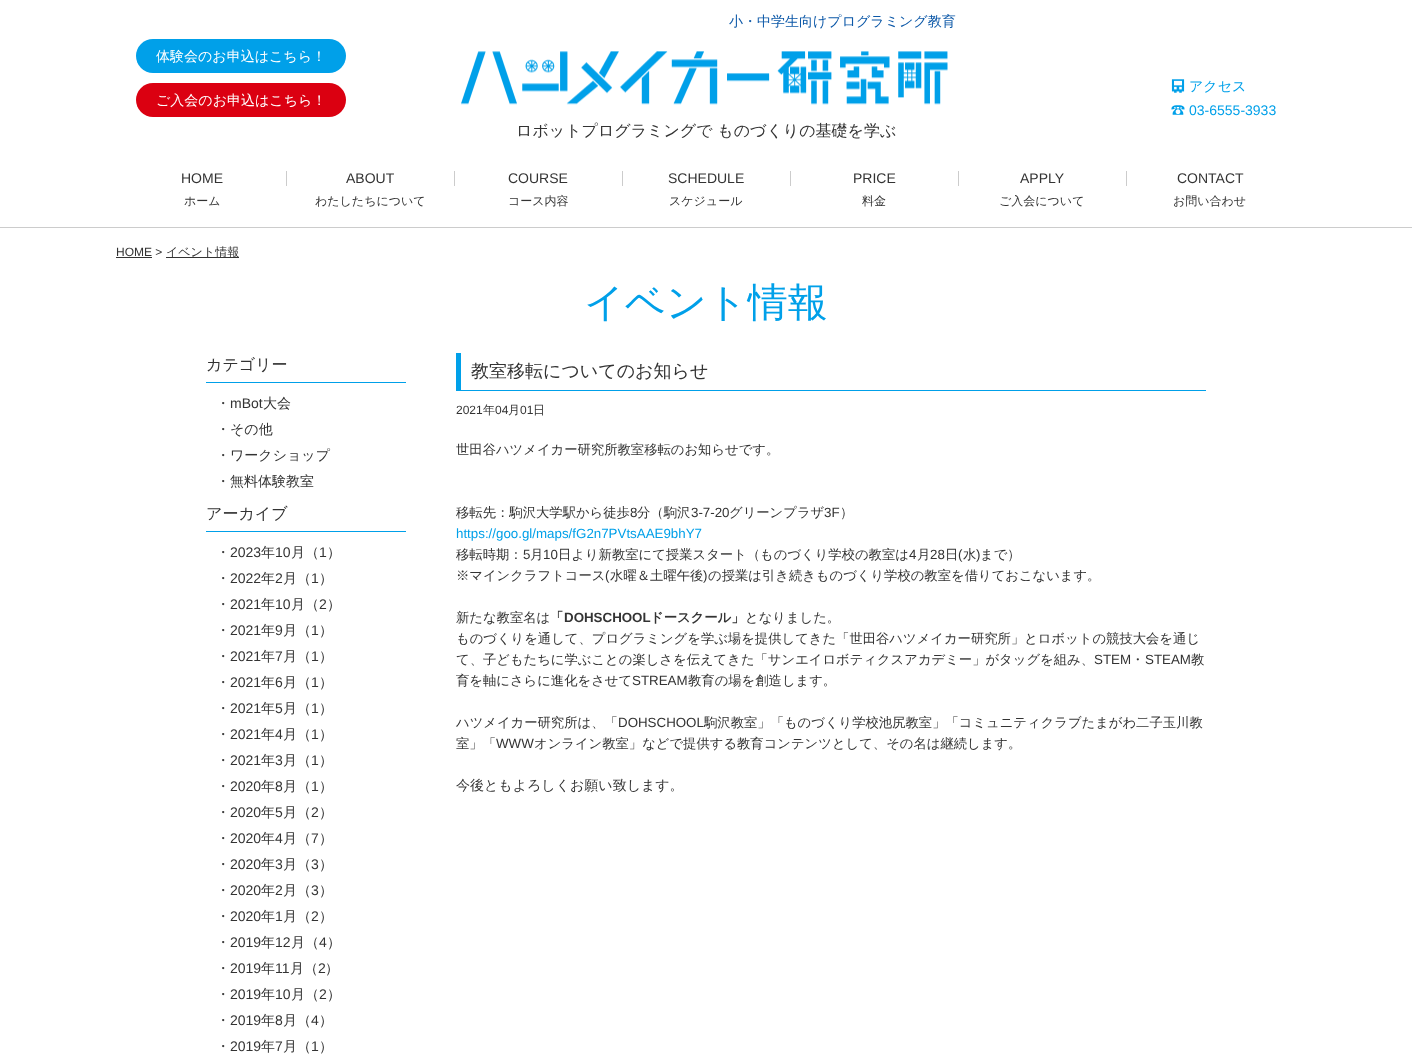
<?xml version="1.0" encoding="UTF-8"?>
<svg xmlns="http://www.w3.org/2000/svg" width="1412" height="1057">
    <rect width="100%" height="100%" fill="#FFFFFF"/>
    <rect x="136" y="39" width="210" height="34" rx="17" fill="#00A0E9"/>
    <text x="156" y="61" font-family="WenQuanYi Zen Hei" font-size="14" font-weight="500" fill="#FFFFFF">体験会のお申込はこちら！</text>
    <rect x="136" y="83" width="210" height="34" rx="17" fill="#DB0011"/>
    <text x="156" y="105" font-family="WenQuanYi Zen Hei" font-size="14" font-weight="500" fill="#FFFFFF">ご入会のお申込はこちら！</text>
    <text x="729" y="26" font-family="WenQuanYi Zen Hei" font-size="14" font-weight="500" fill="#0C58A8">小・中学生向けプログラミング教育</text>
    <image x="461" y="51" width="487" height="54" href="img_01.png"/>
    <text x="516" y="136" font-family="WenQuanYi Zen Hei" font-size="16" font-weight="500" fill="#333333">ロボットプログラミングで ものづくりの基礎を学ぶ</text>
    <image x="1171" y="79" width="14" height="14" href="img_02.png"/>
    <text x="1189" y="91" font-family="WenQuanYi Zen Hei" font-size="14" font-weight="500" fill="#00A0E9">アクセス</text>
    <image x="1171" y="105" width="14" height="10" href="img_03.png"/>
    <text x="1189" y="115" font-family="Liberation Sans" font-size="14" fill="#00A0E9">03-6555-3933</text>
    <rect x="0" y="227" width="1412" height="1" fill="#CCCCCC"/>
    <text x="181" y="183" font-family="Liberation Sans" font-size="14" fill="#333333">HOME</text>
    <text x="184" y="205" font-family="WenQuanYi Zen Hei" font-size="12" font-weight="500" fill="#333333">ホーム</text>
    <rect x="286" y="171" width="1" height="15" fill="#CCCCCC"/>
    <text x="346" y="183" font-family="Liberation Sans" font-size="14" fill="#333333">ABOUT</text>
    <text x="315" y="205" font-family="WenQuanYi Zen Hei" font-size="12" font-weight="500" fill="#333333">わたしたちについて</text>
    <rect x="454" y="171" width="1" height="15" fill="#CCCCCC"/>
    <text x="508" y="183" font-family="Liberation Sans" font-size="14" fill="#333333">COURSE</text>
    <text x="508" y="205" font-family="WenQuanYi Zen Hei" font-size="12" font-weight="500" fill="#333333">コース内容</text>
    <rect x="622" y="171" width="1" height="15" fill="#CCCCCC"/>
    <text x="668" y="183" font-family="Liberation Sans" font-size="14" fill="#333333">SCHEDULE</text>
    <text x="669" y="205" font-family="WenQuanYi Zen Hei" font-size="12" font-weight="500" fill="#333333">スケジュール</text>
    <rect x="790" y="171" width="1" height="15" fill="#CCCCCC"/>
    <text x="853" y="183" font-family="Liberation Sans" font-size="14" fill="#333333">PRICE</text>
    <text x="862" y="205" font-family="WenQuanYi Zen Hei" font-size="12" font-weight="500" fill="#333333">料金</text>
    <rect x="958" y="171" width="1" height="15" fill="#CCCCCC"/>
    <text x="1020" y="183" font-family="Liberation Sans" font-size="14" fill="#333333">APPLY</text>
    <text x="999" y="205" font-family="WenQuanYi Zen Hei" font-size="12" font-weight="500" fill="#333333">ご入会について</text>
    <rect x="1126" y="171" width="1" height="15" fill="#CCCCCC"/>
    <text x="1177" y="183" font-family="Liberation Sans" font-size="14" fill="#333333">CONTACT</text>
    <text x="1173" y="205" font-family="WenQuanYi Zen Hei" font-size="12" font-weight="500" fill="#333333">お問い合わせ</text>
    <text x="116" y="256" font-family="Liberation Sans" font-size="12" fill="#333333">HOME &gt;</text>
    <rect x="116" y="257" width="36" height="1" fill="#333333"/>
    <rect x="166" y="257" width="73" height="1" fill="#333333"/>
    <text x="166" y="256" font-family="WenQuanYi Zen Hei" font-size="12" font-weight="500" fill="#333333">イベント情報</text>
    <text x="584" y="316" font-family="WenQuanYi Zen Hei" font-size="40" font-weight="500" fill="#00A0E9">イベント情報</text>
    <rect x="206" y="382" width="200" height="1" fill="#00A0E9"/>
    <text x="206" y="370" font-family="WenQuanYi Zen Hei" font-size="16" font-weight="500" fill="#333333">カテゴリー</text>
    <text x="216" y="408" font-family="WenQuanYi Zen Hei" font-size="14" font-weight="500" fill="#333333">・</text>
    <text x="230" y="408" font-family="Liberation Sans" font-size="14" fill="#333333">mBot</text>
    <text x="263" y="408" font-family="WenQuanYi Zen Hei" font-size="14" font-weight="500" fill="#333333">大会</text>
    <text x="216" y="434" font-family="WenQuanYi Zen Hei" font-size="14" font-weight="500" fill="#333333">・</text>
    <text x="230" y="434" font-family="WenQuanYi Zen Hei" font-size="14" font-weight="500" fill="#333333">その他</text>
    <text x="216" y="460" font-family="WenQuanYi Zen Hei" font-size="14" font-weight="500" fill="#333333">・</text>
    <text x="230" y="460" font-family="WenQuanYi Zen Hei" font-size="14" font-weight="500" fill="#333333">ワークショップ</text>
    <text x="216" y="486" font-family="WenQuanYi Zen Hei" font-size="14" font-weight="500" fill="#333333">・</text>
    <text x="230" y="486" font-family="WenQuanYi Zen Hei" font-size="14" font-weight="500" fill="#333333">無料体験教室</text>
    <rect x="206" y="531" width="200" height="1" fill="#00A0E9"/>
    <text x="206" y="519" font-family="WenQuanYi Zen Hei" font-size="16" font-weight="500" fill="#333333">アーカイブ</text>
    <text x="216" y="557" font-family="WenQuanYi Zen Hei" font-size="14" font-weight="500" fill="#333333">・</text>
    <text x="230" y="557" font-family="Liberation Sans" font-size="14" fill="#333333">2023</text>
    <text x="261" y="557" font-family="WenQuanYi Zen Hei" font-size="14" font-weight="500" fill="#333333">年</text>
    <text x="275" y="557" font-family="Liberation Sans" font-size="14" fill="#333333">10</text>
    <text x="291" y="557" font-family="WenQuanYi Zen Hei" font-size="14" font-weight="500" fill="#333333">月（</text>
    <text x="319" y="557" font-family="Liberation Sans" font-size="14" fill="#333333">1</text>
    <text x="327" y="557" font-family="WenQuanYi Zen Hei" font-size="14" font-weight="500" fill="#333333">）</text>
    <text x="216" y="583" font-family="WenQuanYi Zen Hei" font-size="14" font-weight="500" fill="#333333">・</text>
    <text x="230" y="583" font-family="Liberation Sans" font-size="14" fill="#333333">2022</text>
    <text x="261" y="583" font-family="WenQuanYi Zen Hei" font-size="14" font-weight="500" fill="#333333">年</text>
    <text x="275" y="583" font-family="Liberation Sans" font-size="14" fill="#333333">2</text>
    <text x="283" y="583" font-family="WenQuanYi Zen Hei" font-size="14" font-weight="500" fill="#333333">月（</text>
    <text x="311" y="583" font-family="Liberation Sans" font-size="14" fill="#333333">1</text>
    <text x="319" y="583" font-family="WenQuanYi Zen Hei" font-size="14" font-weight="500" fill="#333333">）</text>
    <text x="216" y="609" font-family="WenQuanYi Zen Hei" font-size="14" font-weight="500" fill="#333333">・</text>
    <text x="230" y="609" font-family="Liberation Sans" font-size="14" fill="#333333">2021</text>
    <text x="261" y="609" font-family="WenQuanYi Zen Hei" font-size="14" font-weight="500" fill="#333333">年</text>
    <text x="275" y="609" font-family="Liberation Sans" font-size="14" fill="#333333">10</text>
    <text x="291" y="609" font-family="WenQuanYi Zen Hei" font-size="14" font-weight="500" fill="#333333">月（</text>
    <text x="319" y="609" font-family="Liberation Sans" font-size="14" fill="#333333">2</text>
    <text x="327" y="609" font-family="WenQuanYi Zen Hei" font-size="14" font-weight="500" fill="#333333">）</text>
    <text x="216" y="635" font-family="WenQuanYi Zen Hei" font-size="14" font-weight="500" fill="#333333">・</text>
    <text x="230" y="635" font-family="Liberation Sans" font-size="14" fill="#333333">2021</text>
    <text x="261" y="635" font-family="WenQuanYi Zen Hei" font-size="14" font-weight="500" fill="#333333">年</text>
    <text x="275" y="635" font-family="Liberation Sans" font-size="14" fill="#333333">9</text>
    <text x="283" y="635" font-family="WenQuanYi Zen Hei" font-size="14" font-weight="500" fill="#333333">月（</text>
    <text x="311" y="635" font-family="Liberation Sans" font-size="14" fill="#333333">1</text>
    <text x="319" y="635" font-family="WenQuanYi Zen Hei" font-size="14" font-weight="500" fill="#333333">）</text>
    <text x="216" y="661" font-family="WenQuanYi Zen Hei" font-size="14" font-weight="500" fill="#333333">・</text>
    <text x="230" y="661" font-family="Liberation Sans" font-size="14" fill="#333333">2021</text>
    <text x="261" y="661" font-family="WenQuanYi Zen Hei" font-size="14" font-weight="500" fill="#333333">年</text>
    <text x="275" y="661" font-family="Liberation Sans" font-size="14" fill="#333333">7</text>
    <text x="283" y="661" font-family="WenQuanYi Zen Hei" font-size="14" font-weight="500" fill="#333333">月（</text>
    <text x="311" y="661" font-family="Liberation Sans" font-size="14" fill="#333333">1</text>
    <text x="319" y="661" font-family="WenQuanYi Zen Hei" font-size="14" font-weight="500" fill="#333333">）</text>
    <text x="216" y="687" font-family="WenQuanYi Zen Hei" font-size="14" font-weight="500" fill="#333333">・</text>
    <text x="230" y="687" font-family="Liberation Sans" font-size="14" fill="#333333">2021</text>
    <text x="261" y="687" font-family="WenQuanYi Zen Hei" font-size="14" font-weight="500" fill="#333333">年</text>
    <text x="275" y="687" font-family="Liberation Sans" font-size="14" fill="#333333">6</text>
    <text x="283" y="687" font-family="WenQuanYi Zen Hei" font-size="14" font-weight="500" fill="#333333">月（</text>
    <text x="311" y="687" font-family="Liberation Sans" font-size="14" fill="#333333">1</text>
    <text x="319" y="687" font-family="WenQuanYi Zen Hei" font-size="14" font-weight="500" fill="#333333">）</text>
    <text x="216" y="713" font-family="WenQuanYi Zen Hei" font-size="14" font-weight="500" fill="#333333">・</text>
    <text x="230" y="713" font-family="Liberation Sans" font-size="14" fill="#333333">2021</text>
    <text x="261" y="713" font-family="WenQuanYi Zen Hei" font-size="14" font-weight="500" fill="#333333">年</text>
    <text x="275" y="713" font-family="Liberation Sans" font-size="14" fill="#333333">5</text>
    <text x="283" y="713" font-family="WenQuanYi Zen Hei" font-size="14" font-weight="500" fill="#333333">月（</text>
    <text x="311" y="713" font-family="Liberation Sans" font-size="14" fill="#333333">1</text>
    <text x="319" y="713" font-family="WenQuanYi Zen Hei" font-size="14" font-weight="500" fill="#333333">）</text>
    <text x="216" y="739" font-family="WenQuanYi Zen Hei" font-size="14" font-weight="500" fill="#333333">・</text>
    <text x="230" y="739" font-family="Liberation Sans" font-size="14" fill="#333333">2021</text>
    <text x="261" y="739" font-family="WenQuanYi Zen Hei" font-size="14" font-weight="500" fill="#333333">年</text>
    <text x="275" y="739" font-family="Liberation Sans" font-size="14" fill="#333333">4</text>
    <text x="283" y="739" font-family="WenQuanYi Zen Hei" font-size="14" font-weight="500" fill="#333333">月（</text>
    <text x="311" y="739" font-family="Liberation Sans" font-size="14" fill="#333333">1</text>
    <text x="319" y="739" font-family="WenQuanYi Zen Hei" font-size="14" font-weight="500" fill="#333333">）</text>
    <text x="216" y="765" font-family="WenQuanYi Zen Hei" font-size="14" font-weight="500" fill="#333333">・</text>
    <text x="230" y="765" font-family="Liberation Sans" font-size="14" fill="#333333">2021</text>
    <text x="261" y="765" font-family="WenQuanYi Zen Hei" font-size="14" font-weight="500" fill="#333333">年</text>
    <text x="275" y="765" font-family="Liberation Sans" font-size="14" fill="#333333">3</text>
    <text x="283" y="765" font-family="WenQuanYi Zen Hei" font-size="14" font-weight="500" fill="#333333">月（</text>
    <text x="311" y="765" font-family="Liberation Sans" font-size="14" fill="#333333">1</text>
    <text x="319" y="765" font-family="WenQuanYi Zen Hei" font-size="14" font-weight="500" fill="#333333">）</text>
    <text x="216" y="791" font-family="WenQuanYi Zen Hei" font-size="14" font-weight="500" fill="#333333">・</text>
    <text x="230" y="791" font-family="Liberation Sans" font-size="14" fill="#333333">2020</text>
    <text x="261" y="791" font-family="WenQuanYi Zen Hei" font-size="14" font-weight="500" fill="#333333">年</text>
    <text x="275" y="791" font-family="Liberation Sans" font-size="14" fill="#333333">8</text>
    <text x="283" y="791" font-family="WenQuanYi Zen Hei" font-size="14" font-weight="500" fill="#333333">月（</text>
    <text x="311" y="791" font-family="Liberation Sans" font-size="14" fill="#333333">1</text>
    <text x="319" y="791" font-family="WenQuanYi Zen Hei" font-size="14" font-weight="500" fill="#333333">）</text>
    <text x="216" y="817" font-family="WenQuanYi Zen Hei" font-size="14" font-weight="500" fill="#333333">・</text>
    <text x="230" y="817" font-family="Liberation Sans" font-size="14" fill="#333333">2020</text>
    <text x="261" y="817" font-family="WenQuanYi Zen Hei" font-size="14" font-weight="500" fill="#333333">年</text>
    <text x="275" y="817" font-family="Liberation Sans" font-size="14" fill="#333333">5</text>
    <text x="283" y="817" font-family="WenQuanYi Zen Hei" font-size="14" font-weight="500" fill="#333333">月（</text>
    <text x="311" y="817" font-family="Liberation Sans" font-size="14" fill="#333333">2</text>
    <text x="319" y="817" font-family="WenQuanYi Zen Hei" font-size="14" font-weight="500" fill="#333333">）</text>
    <text x="216" y="843" font-family="WenQuanYi Zen Hei" font-size="14" font-weight="500" fill="#333333">・</text>
    <text x="230" y="843" font-family="Liberation Sans" font-size="14" fill="#333333">2020</text>
    <text x="261" y="843" font-family="WenQuanYi Zen Hei" font-size="14" font-weight="500" fill="#333333">年</text>
    <text x="275" y="843" font-family="Liberation Sans" font-size="14" fill="#333333">4</text>
    <text x="283" y="843" font-family="WenQuanYi Zen Hei" font-size="14" font-weight="500" fill="#333333">月（</text>
    <text x="311" y="843" font-family="Liberation Sans" font-size="14" fill="#333333">7</text>
    <text x="319" y="843" font-family="WenQuanYi Zen Hei" font-size="14" font-weight="500" fill="#333333">）</text>
    <text x="216" y="869" font-family="WenQuanYi Zen Hei" font-size="14" font-weight="500" fill="#333333">・</text>
    <text x="230" y="869" font-family="Liberation Sans" font-size="14" fill="#333333">2020</text>
    <text x="261" y="869" font-family="WenQuanYi Zen Hei" font-size="14" font-weight="500" fill="#333333">年</text>
    <text x="275" y="869" font-family="Liberation Sans" font-size="14" fill="#333333">3</text>
    <text x="283" y="869" font-family="WenQuanYi Zen Hei" font-size="14" font-weight="500" fill="#333333">月（</text>
    <text x="311" y="869" font-family="Liberation Sans" font-size="14" fill="#333333">3</text>
    <text x="319" y="869" font-family="WenQuanYi Zen Hei" font-size="14" font-weight="500" fill="#333333">）</text>
    <text x="216" y="895" font-family="WenQuanYi Zen Hei" font-size="14" font-weight="500" fill="#333333">・</text>
    <text x="230" y="895" font-family="Liberation Sans" font-size="14" fill="#333333">2020</text>
    <text x="261" y="895" font-family="WenQuanYi Zen Hei" font-size="14" font-weight="500" fill="#333333">年</text>
    <text x="275" y="895" font-family="Liberation Sans" font-size="14" fill="#333333">2</text>
    <text x="283" y="895" font-family="WenQuanYi Zen Hei" font-size="14" font-weight="500" fill="#333333">月（</text>
    <text x="311" y="895" font-family="Liberation Sans" font-size="14" fill="#333333">3</text>
    <text x="319" y="895" font-family="WenQuanYi Zen Hei" font-size="14" font-weight="500" fill="#333333">）</text>
    <text x="216" y="921" font-family="WenQuanYi Zen Hei" font-size="14" font-weight="500" fill="#333333">・</text>
    <text x="230" y="921" font-family="Liberation Sans" font-size="14" fill="#333333">2020</text>
    <text x="261" y="921" font-family="WenQuanYi Zen Hei" font-size="14" font-weight="500" fill="#333333">年</text>
    <text x="275" y="921" font-family="Liberation Sans" font-size="14" fill="#333333">1</text>
    <text x="283" y="921" font-family="WenQuanYi Zen Hei" font-size="14" font-weight="500" fill="#333333">月（</text>
    <text x="311" y="921" font-family="Liberation Sans" font-size="14" fill="#333333">2</text>
    <text x="319" y="921" font-family="WenQuanYi Zen Hei" font-size="14" font-weight="500" fill="#333333">）</text>
    <text x="216" y="947" font-family="WenQuanYi Zen Hei" font-size="14" font-weight="500" fill="#333333">・</text>
    <text x="230" y="947" font-family="Liberation Sans" font-size="14" fill="#333333">2019</text>
    <text x="261" y="947" font-family="WenQuanYi Zen Hei" font-size="14" font-weight="500" fill="#333333">年</text>
    <text x="275" y="947" font-family="Liberation Sans" font-size="14" fill="#333333">12</text>
    <text x="291" y="947" font-family="WenQuanYi Zen Hei" font-size="14" font-weight="500" fill="#333333">月（</text>
    <text x="319" y="947" font-family="Liberation Sans" font-size="14" fill="#333333">4</text>
    <text x="327" y="947" font-family="WenQuanYi Zen Hei" font-size="14" font-weight="500" fill="#333333">）</text>
    <text x="216" y="973" font-family="WenQuanYi Zen Hei" font-size="14" font-weight="500" fill="#333333">・</text>
    <text x="230" y="973" font-family="Liberation Sans" font-size="14" fill="#333333">2019</text>
    <text x="261" y="973" font-family="WenQuanYi Zen Hei" font-size="14" font-weight="500" fill="#333333">年</text>
    <text x="275" y="973" font-family="Liberation Sans" font-size="14" fill="#333333">11</text>
    <text x="290" y="973" font-family="WenQuanYi Zen Hei" font-size="14" font-weight="500" fill="#333333">月（</text>
    <text x="318" y="973" font-family="Liberation Sans" font-size="14" fill="#333333">2</text>
    <text x="325" y="973" font-family="WenQuanYi Zen Hei" font-size="14" font-weight="500" fill="#333333">）</text>
    <text x="216" y="999" font-family="WenQuanYi Zen Hei" font-size="14" font-weight="500" fill="#333333">・</text>
    <text x="230" y="999" font-family="Liberation Sans" font-size="14" fill="#333333">2019</text>
    <text x="261" y="999" font-family="WenQuanYi Zen Hei" font-size="14" font-weight="500" fill="#333333">年</text>
    <text x="275" y="999" font-family="Liberation Sans" font-size="14" fill="#333333">10</text>
    <text x="291" y="999" font-family="WenQuanYi Zen Hei" font-size="14" font-weight="500" fill="#333333">月（</text>
    <text x="319" y="999" font-family="Liberation Sans" font-size="14" fill="#333333">2</text>
    <text x="327" y="999" font-family="WenQuanYi Zen Hei" font-size="14" font-weight="500" fill="#333333">）</text>
    <text x="216" y="1025" font-family="WenQuanYi Zen Hei" font-size="14" font-weight="500" fill="#333333">・</text>
    <text x="230" y="1025" font-family="Liberation Sans" font-size="14" fill="#333333">2019</text>
    <text x="261" y="1025" font-family="WenQuanYi Zen Hei" font-size="14" font-weight="500" fill="#333333">年</text>
    <text x="275" y="1025" font-family="Liberation Sans" font-size="14" fill="#333333">8</text>
    <text x="283" y="1025" font-family="WenQuanYi Zen Hei" font-size="14" font-weight="500" fill="#333333">月（</text>
    <text x="311" y="1025" font-family="Liberation Sans" font-size="14" fill="#333333">4</text>
    <text x="319" y="1025" font-family="WenQuanYi Zen Hei" font-size="14" font-weight="500" fill="#333333">）</text>
    <text x="216" y="1051" font-family="WenQuanYi Zen Hei" font-size="14" font-weight="500" fill="#333333">・</text>
    <text x="230" y="1051" font-family="Liberation Sans" font-size="14" fill="#333333">2019</text>
    <text x="261" y="1051" font-family="WenQuanYi Zen Hei" font-size="14" font-weight="500" fill="#333333">年</text>
    <text x="275" y="1051" font-family="Liberation Sans" font-size="14" fill="#333333">7</text>
    <text x="283" y="1051" font-family="WenQuanYi Zen Hei" font-size="14" font-weight="500" fill="#333333">月（</text>
    <text x="311" y="1051" font-family="Liberation Sans" font-size="14" fill="#333333">1</text>
    <text x="319" y="1051" font-family="WenQuanYi Zen Hei" font-size="14" font-weight="500" fill="#333333">）</text>
    <rect x="456" y="390" width="750" height="1" fill="#00A0E9"/>
    <rect x="456" y="353" width="5" height="38" fill="#00A0E9"/>
    <text x="471" y="377" font-family="WenQuanYi Zen Hei" font-size="18" font-weight="500" fill="#333333">教室移転についてのお知らせ</text>
    <text x="456" y="414" font-family="Liberation Sans" font-size="12" fill="#333333">2021</text>
    <text x="483" y="414" font-family="WenQuanYi Zen Hei" font-size="12" font-weight="500" fill="#333333">年</text>
    <text x="495" y="414" font-family="Liberation Sans" font-size="12" fill="#333333">04</text>
    <text x="508" y="414" font-family="WenQuanYi Zen Hei" font-size="12" font-weight="500" fill="#333333">月</text>
    <text x="520" y="414" font-family="Liberation Sans" font-size="12" fill="#333333">01</text>
    <text x="533" y="414" font-family="WenQuanYi Zen Hei" font-size="12" font-weight="500" fill="#333333">日</text>
    <text x="456" y="454" font-family="WenQuanYi Zen Hei" font-size="13.33" font-weight="500" fill="#333333">世田谷ハツメイカー研究所教室移転のお知らせです。</text>
    <text x="456" y="517" font-family="WenQuanYi Zen Hei" font-size="13.33" font-weight="500" fill="#333333">移転先：駒沢大学駅から徒歩</text>
    <text x="630" y="517" font-family="Liberation Sans" font-size="13.33" fill="#333333">8</text>
    <text x="637" y="517" font-family="WenQuanYi Zen Hei" font-size="13.33" font-weight="500" fill="#333333">分（駒沢</text>
    <text x="691" y="517" font-family="Liberation Sans" font-size="13.33" fill="#333333">3-7-20</text>
    <text x="729" y="517" font-family="WenQuanYi Zen Hei" font-size="13.33" font-weight="500" fill="#333333">グリーンプラザ</text>
    <text x="824" y="517" font-family="Liberation Sans" font-size="13.33" fill="#333333">3F</text>
    <text x="840" y="517" font-family="WenQuanYi Zen Hei" font-size="13.33" font-weight="500" fill="#333333">）</text>
    <text x="456" y="538" font-family="Liberation Sans" font-size="13.33" fill="#00A0E9">https://goo.gl/maps/fG2n7PVtsAAE9bhY7</text>
    <text x="456" y="559" font-family="WenQuanYi Zen Hei" font-size="13.33" font-weight="500" fill="#333333">移転時期：</text>
    <text x="523" y="559" font-family="Liberation Sans" font-size="13.33" fill="#333333">5</text>
    <text x="530" y="559" font-family="WenQuanYi Zen Hei" font-size="13.33" font-weight="500" fill="#333333">月</text>
    <text x="543" y="559" font-family="Liberation Sans" font-size="13.33" fill="#333333">10</text>
    <text x="558" y="559" font-family="WenQuanYi Zen Hei" font-size="13.33" font-weight="500" fill="#333333">日より新教室にて授業スタート（ものづくり学校の教室は</text>
    <text x="909" y="559" font-family="Liberation Sans" font-size="13.33" fill="#333333">4</text>
    <text x="917" y="559" font-family="WenQuanYi Zen Hei" font-size="13.33" font-weight="500" fill="#333333">月</text>
    <text x="930" y="559" font-family="Liberation Sans" font-size="13.33" fill="#333333">28</text>
    <text x="945" y="559" font-family="WenQuanYi Zen Hei" font-size="13.33" font-weight="500" fill="#333333">日</text>
    <text x="958" y="559" font-family="Liberation Sans" font-size="13.33" fill="#333333">(</text>
    <text x="963" y="559" font-family="WenQuanYi Zen Hei" font-size="13.33" font-weight="500" fill="#333333">水</text>
    <text x="976" y="559" font-family="Liberation Sans" font-size="13.33" fill="#333333">)</text>
    <text x="980" y="559" font-family="WenQuanYi Zen Hei" font-size="13.33" font-weight="500" fill="#333333">まで）</text>
    <text x="456" y="580" font-family="WenQuanYi Zen Hei" font-size="13.33" font-weight="500" fill="#333333">※マインクラフトコース</text>
    <text x="605" y="580" font-family="Liberation Sans" font-size="13.33" fill="#333333">(</text>
    <text x="610" y="580" font-family="WenQuanYi Zen Hei" font-size="13.33" font-weight="500" fill="#333333">水曜＆土曜午後</text>
    <text x="703" y="580" font-family="Liberation Sans" font-size="13.33" fill="#333333">)</text>
    <text x="708" y="580" font-family="WenQuanYi Zen Hei" font-size="13.33" font-weight="500" fill="#333333">の授業は引き続きものづくり学校の教室を借りておこないます。</text>
    <text x="456" y="622" font-family="WenQuanYi Zen Hei" font-size="13.33" font-weight="500" fill="#333333">新たな教室名は</text>
    <text x="550" y="622" font-family="WenQuanYi Zen Hei" font-size="13.33" font-weight="700" fill="#333333">「</text>
    <text x="564" y="622" font-family="Liberation Sans" font-size="13.33" font-weight="700" fill="#333333">DOHSCHOOL</text>
    <text x="650" y="622" font-family="WenQuanYi Zen Hei" font-size="13.33" font-weight="700" fill="#333333">ドースクール」</text>
    <text x="745" y="622" font-family="WenQuanYi Zen Hei" font-size="13.33" font-weight="500" fill="#333333">となりました。</text>
    <text font-family="WenQuanYi Zen Hei" font-size="13.33" font-weight="500" fill="#333333">
        <tspan x="456" y="643">ものづくりを通して、プログラミングを学ぶ場を提供してきた「世田谷ハツメイカー研究所」とロボットの競技大会を通じ</tspan>
        <tspan x="456" y="664">て、子どもたちに学ぶことの楽しさを伝えてきた「サンエイロボティクスアカデミー」がタッグを組み、</tspan>
    </text>
    <text x="1094" y="664" font-family="Liberation Sans" font-size="13.33" fill="#333333">STEM</text>
    <text x="1131" y="664" font-family="WenQuanYi Zen Hei" font-size="13.33" font-weight="500" fill="#333333">・</text>
    <text x="1145" y="664" font-family="Liberation Sans" font-size="13.33" fill="#333333">STEAM</text>
    <text x="1191" y="664" font-family="WenQuanYi Zen Hei" font-size="13.33" font-weight="500" fill="#333333">教</text>
    <text x="456" y="685" font-family="WenQuanYi Zen Hei" font-size="13.33" font-weight="500" fill="#333333">育を軸にさらに進化をさせて</text>
    <text x="632" y="685" font-family="Liberation Sans" font-size="13.33" fill="#333333">STREAM</text>
    <text x="688" y="685" font-family="WenQuanYi Zen Hei" font-size="13.33" font-weight="500" fill="#333333">教育の場を創造します。</text>
    <text x="456" y="727" font-family="WenQuanYi Zen Hei" font-size="13.33" font-weight="500" fill="#333333">ハツメイカー研究所は、「</text>
    <text x="618" y="727" font-family="Liberation Sans" font-size="13.33" fill="#333333">DOHSCHOOL</text>
    <text x="704" y="727" font-family="WenQuanYi Zen Hei" font-size="13.33" font-weight="500" fill="#333333">駒沢教室」「ものづくり学校池尻教室」「コミュニティクラブたまがわ二子玉川教</text>
    <text x="456" y="748" font-family="WenQuanYi Zen Hei" font-size="13.33" font-weight="500" fill="#333333">室」「</text>
    <text x="496" y="748" font-family="Liberation Sans" font-size="13.33" fill="#333333">WWW</text>
    <text x="534" y="748" font-family="WenQuanYi Zen Hei" font-size="13.33" font-weight="500" fill="#333333">オンライン教室」などで提供する教育コンテンツとして、その名は継続します。</text>
    <text x="456" y="790" font-family="WenQuanYi Zen Hei" font-size="14" font-weight="500" fill="#333333">今後ともよろしくお願い致します。</text>
</svg>
